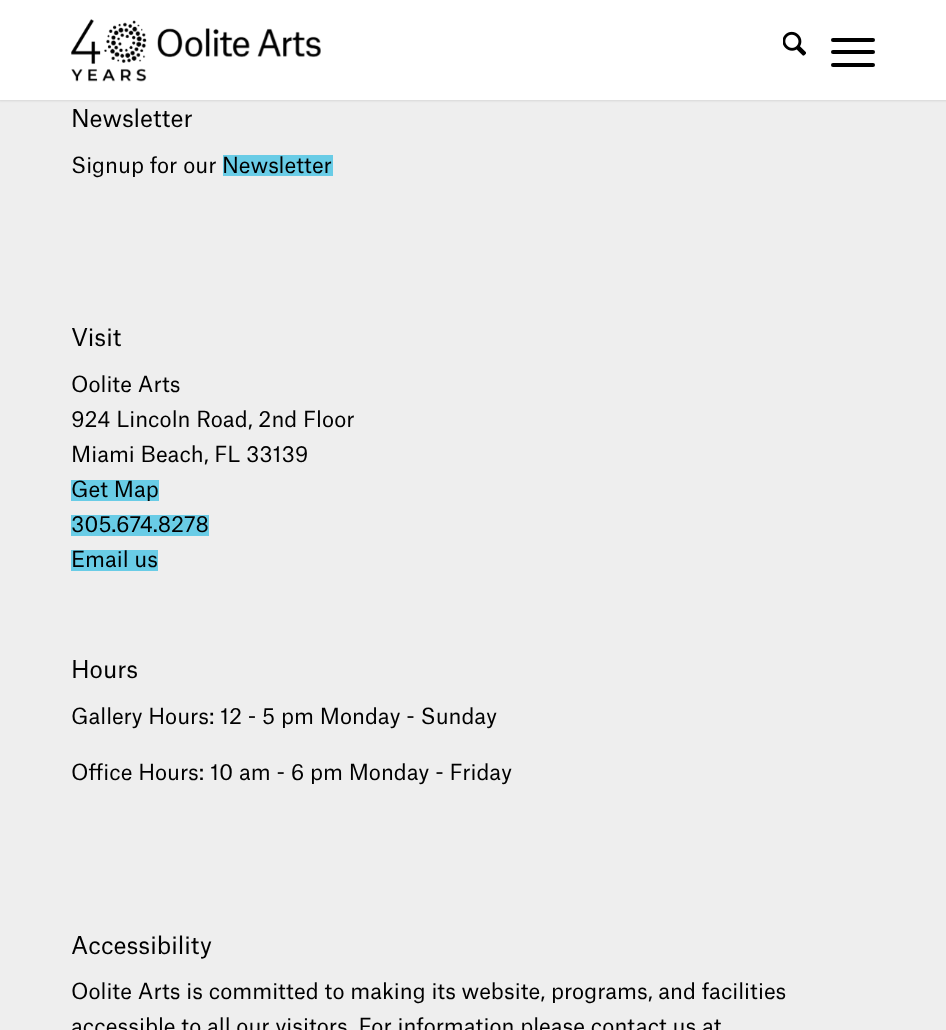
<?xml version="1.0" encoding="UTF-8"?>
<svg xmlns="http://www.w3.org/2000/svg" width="946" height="1030">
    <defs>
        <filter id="blur1" x="-50%" y="-200%" width="200%" height="500%"><feGaussianBlur stdDeviation="1"/></filter>
    </defs>
    <rect width="100%" height="100%" fill="#EEEEEE"/>
    <rect x="-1" y="-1" width="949" height="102" fill="#000000" fill-opacity="0.1" filter="url(#blur1)"/>
    <rect x="0" y="0" width="946" height="100" fill="#FFFFFF"/>
    <image x="71" y="19" width="250" height="63" href="img_01.png"/>
    <image x="783" y="31" width="23" height="25" href="img_02.png"/>
    <rect x="831" y="50" width="44" height="4" rx="2" fill="#000000"/>
    <rect x="831" y="38" width="44" height="4" rx="2" fill="#000000"/>
    <rect x="831" y="63" width="44" height="4" rx="2" fill="#000000"/>
    <text x="71" y="127" font-family="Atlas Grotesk" font-size="23.5" fill="#000000">Newsletter</text>
    <text x="71" y="173" font-family="Atlas Grotesk" font-size="21.25" fill="#000000">Signup for our</text>
    <rect x="223" y="155" width="110" height="21" fill="#69CCE6"/>
    <text x="222" y="173" font-family="Atlas Grotesk" font-size="21.25" fill="#000000">Newsletter</text>
    <text x="71" y="346" font-family="Atlas Grotesk" font-size="23.5" fill="#000000">Visit</text>
    <text font-family="Atlas Grotesk" font-size="21.25" fill="#000000">
        <tspan x="71" y="392">Oolite Arts</tspan>
        <tspan x="71" y="427">924 Lincoln Road, 2nd Floor</tspan>
        <tspan x="71" y="462">Miami Beach, FL 33139</tspan>
    </text>
    <rect x="71" y="480" width="88" height="21" fill="#69CCE6"/>
    <text x="71" y="497" font-family="Atlas Grotesk" font-size="21.25" fill="#000000">Get Map</text>
    <rect x="71" y="515" width="138" height="21" fill="#69CCE6"/>
    <text x="71" y="532" font-family="Atlas Grotesk" font-size="21.25" fill="#000000">305.674.8278</text>
    <rect x="71" y="550" width="87" height="21" fill="#69CCE6"/>
    <text x="71" y="567" font-family="Atlas Grotesk" font-size="21.25" fill="#000000">Email us</text>
    <text x="71" y="678" font-family="Atlas Grotesk" font-size="23.5" fill="#000000">Hours</text>
    <text x="71" y="724" font-family="Atlas Grotesk" font-size="21.25" fill="#000000">Gallery Hours: 12 - 5 pm Monday - Sunday</text>
    <text x="71" y="780" font-family="Atlas Grotesk" font-size="21.25" fill="#000000">Office Hours: 10 am - 6 pm Monday - Friday</text>
    <text x="71" y="954" font-family="Atlas Grotesk" font-size="23.5" fill="#000000">Accessibility</text>
    <text font-family="Atlas Grotesk" font-size="21.25" fill="#000000">
        <tspan x="71" y="999">Oolite Arts is committed to making its website, programs, and facilities</tspan>
        <tspan x="71" y="1034">accessible to all our visitors. For information please contact us at</tspan>
    </text>
</svg>
